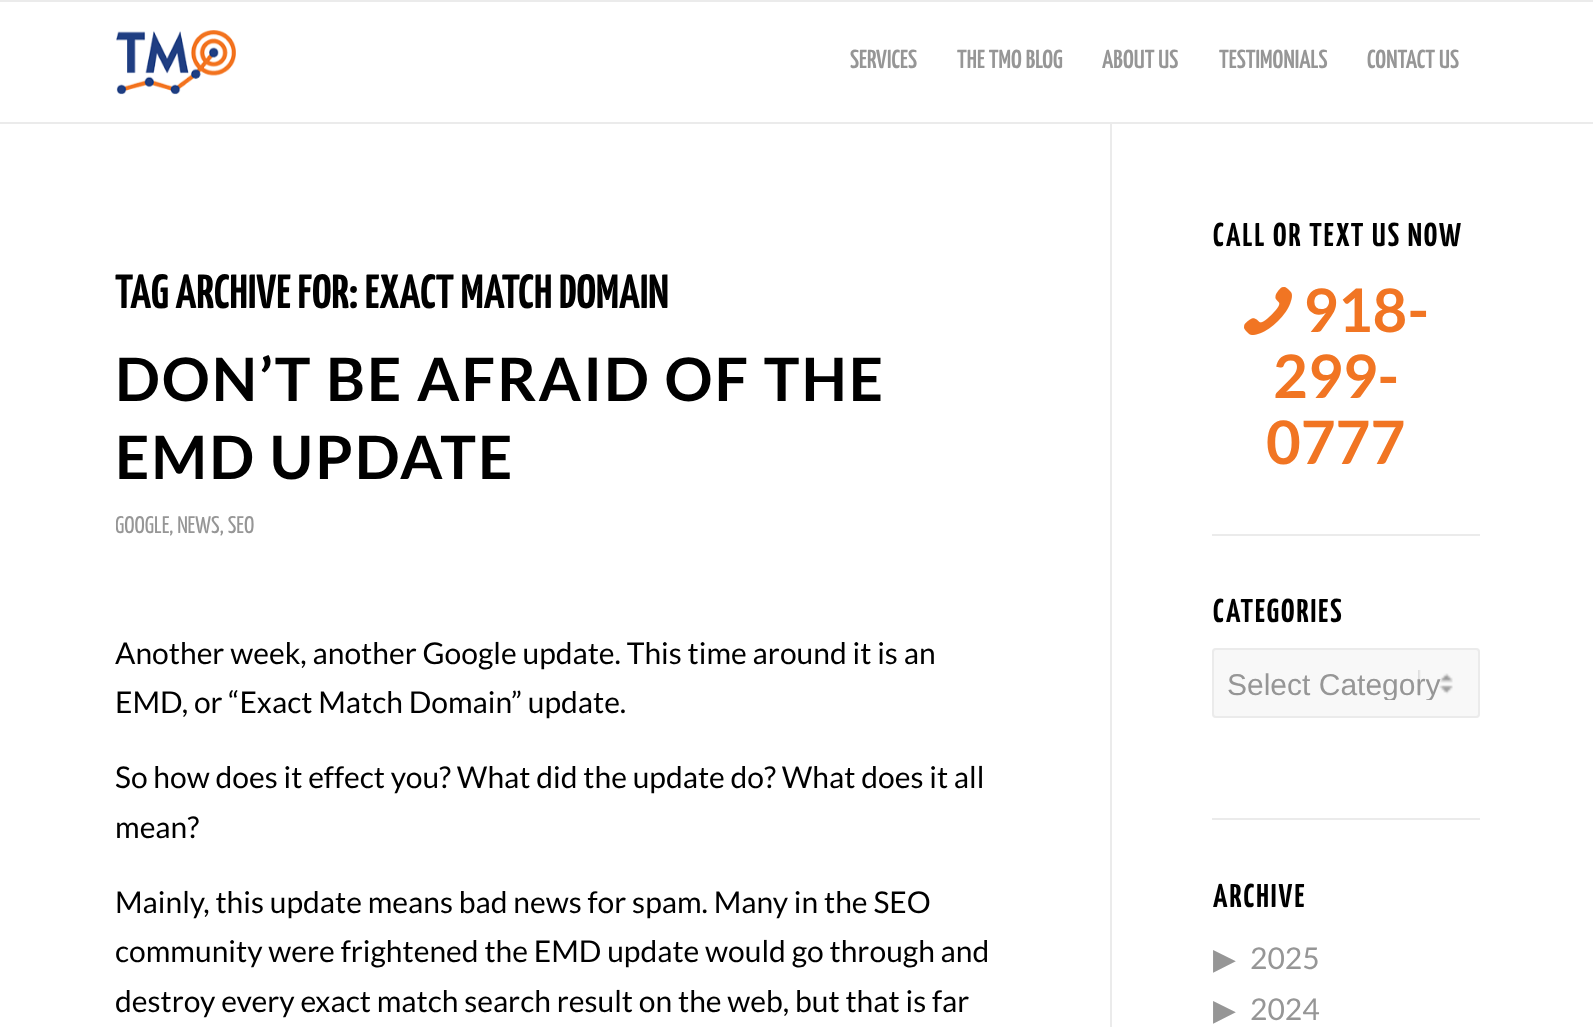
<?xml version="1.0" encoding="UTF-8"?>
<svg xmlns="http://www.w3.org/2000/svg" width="1593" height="1027">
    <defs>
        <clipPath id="clip1"><rect x="116" y="338" width="994" height="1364"/></clipPath>
        <clipPath id="clip2"><rect x="1226" y="666" width="240" height="34"/></clipPath>
    </defs>
    <rect width="100%" height="100%" fill="#FFFFFF"/>
    <rect x="0" y="0" width="1593" height="2" fill="#EBEBEB"/>
    <rect x="1110" y="120" width="2" height="907" fill="#EBEBEB"/>
    <rect x="0" y="122" width="1593" height="2" fill="#EBEBEB"/>
    <image x="116" y="30" width="120" height="65" href="img_01.png"/>
    <text x="850" y="68" font-family="Yanone Kaffeesatz" font-size="26" font-weight="600" fill="#969696">SERVICES</text>
    <text x="957" y="68" font-family="Yanone Kaffeesatz" font-size="26" font-weight="600" fill="#969696">THE TMO BLOG</text>
    <text x="1102" y="68" font-family="Yanone Kaffeesatz" font-size="26" font-weight="600" fill="#969696">ABOUT US</text>
    <text x="1219" y="68" font-family="Yanone Kaffeesatz" font-size="26" font-weight="600" fill="#969696">TESTIMONIALS</text>
    <text x="1367" y="68" font-family="Yanone Kaffeesatz" font-size="26" font-weight="600" fill="#969696">CONTACT US</text>
    <rect x="1110" y="120" width="2" height="2" fill="#FFFFFF"/>
    <text x="115" y="308" font-family="Yanone Kaffeesatz" font-size="48" font-weight="700" fill="#000000">TAG ARCHIVE FOR: EXACT MATCH DOMAIN</text>
    <text font-family="Lato" font-size="60" font-weight="700" letter-spacing="2" fill="#000000">
        <tspan x="115" y="401">DON’T BE AFRAID OF THE</tspan>
        <tspan x="115" y="479">EMD UPDATE</tspan>
    </text>
    <g clip-path="url(#clip1)">
        <text x="115" y="533" font-family="Yanone Kaffeesatz" font-size="24" fill="#969696">GOOGLE</text>
    </g>
    <text x="169" y="533" font-family="Yanone Kaffeesatz" font-size="24" fill="#969696">, NEWS, SEO</text>
    <text font-family="Lato" font-size="30" fill="#000000">
        <tspan x="115" y="664">Another week, another Google update. This time around it is an</tspan>
        <tspan x="115" y="713">EMD, or “Exact Match Domain” update.</tspan>
    </text>
    <text font-family="Lato" font-size="30" fill="#000000">
        <tspan x="115" y="788">So how does it effect you? What did the update do? What does it all</tspan>
        <tspan x="115" y="838">mean?</tspan>
    </text>
    <text font-family="Lato" font-size="30" fill="#000000">
        <tspan x="115" y="913">Mainly, this update means bad news for spam. Many in the SEO</tspan>
        <tspan x="115" y="962">community were frightened the EMD update would go through and</tspan>
        <tspan x="115" y="1012">destroy every exact match search result on the web, but that is far</tspan>
    </text>
    <rect x="1212" y="534" width="268" height="2" fill="#EBEBEB"/>
    <text x="1213" y="246" font-family="Yanone Kaffeesatz" font-size="33" font-weight="700" letter-spacing="2" fill="#000000">CALL OR TEXT US NOW</text>
    <image x="1244" y="287" width="48" height="48" href="img_02.png"/>
    <text x="1303" y="332" font-family="Lato" font-size="60" font-weight="700" fill="#F17523">918-</text>
    <text x="1273" y="398" font-family="Lato" font-size="60" font-weight="700" fill="#F17523">299-</text>
    <text x="1266" y="464" font-family="Lato" font-size="60" font-weight="700" fill="#F17523">0777</text>
    <rect x="1212" y="818" width="268" height="2" fill="#EBEBEB"/>
    <text x="1213" y="622" font-family="Yanone Kaffeesatz" font-size="33" font-weight="700" letter-spacing="2" fill="#000000">CATEGORIES</text>
    <rect x="1212" y="648" width="268" height="70" rx="4" fill="#F8F8F8"/>
    <image x="1418" y="670" width="35" height="26" href="img_03.png"/>
    <rect x="1213" y="649" width="266" height="68" rx="3" fill="none" stroke="#EBEBEB" stroke-width="2"/>
    <g clip-path="url(#clip2)">
        <text x="1227" y="695" font-family="Liberation Sans" font-size="30" fill="#969696">Select Category</text>
    </g>
    <text x="1213" y="907" font-family="Yanone Kaffeesatz" font-size="33" font-weight="700" letter-spacing="2" fill="#000000">ARCHIVE</text>
    <text x="1213" y="969" font-family="DejaVu Sans" font-size="28" font-weight="700" fill="#969696">▶</text>
    <text x="1250" y="969" font-family="Lato" font-size="30" fill="#969696">2025</text>
    <text x="1213" y="1020" font-family="DejaVu Sans" font-size="28" font-weight="700" fill="#969696">▶</text>
    <text x="1250" y="1020" font-family="Lato" font-size="30" fill="#969696">2024</text>
</svg>
